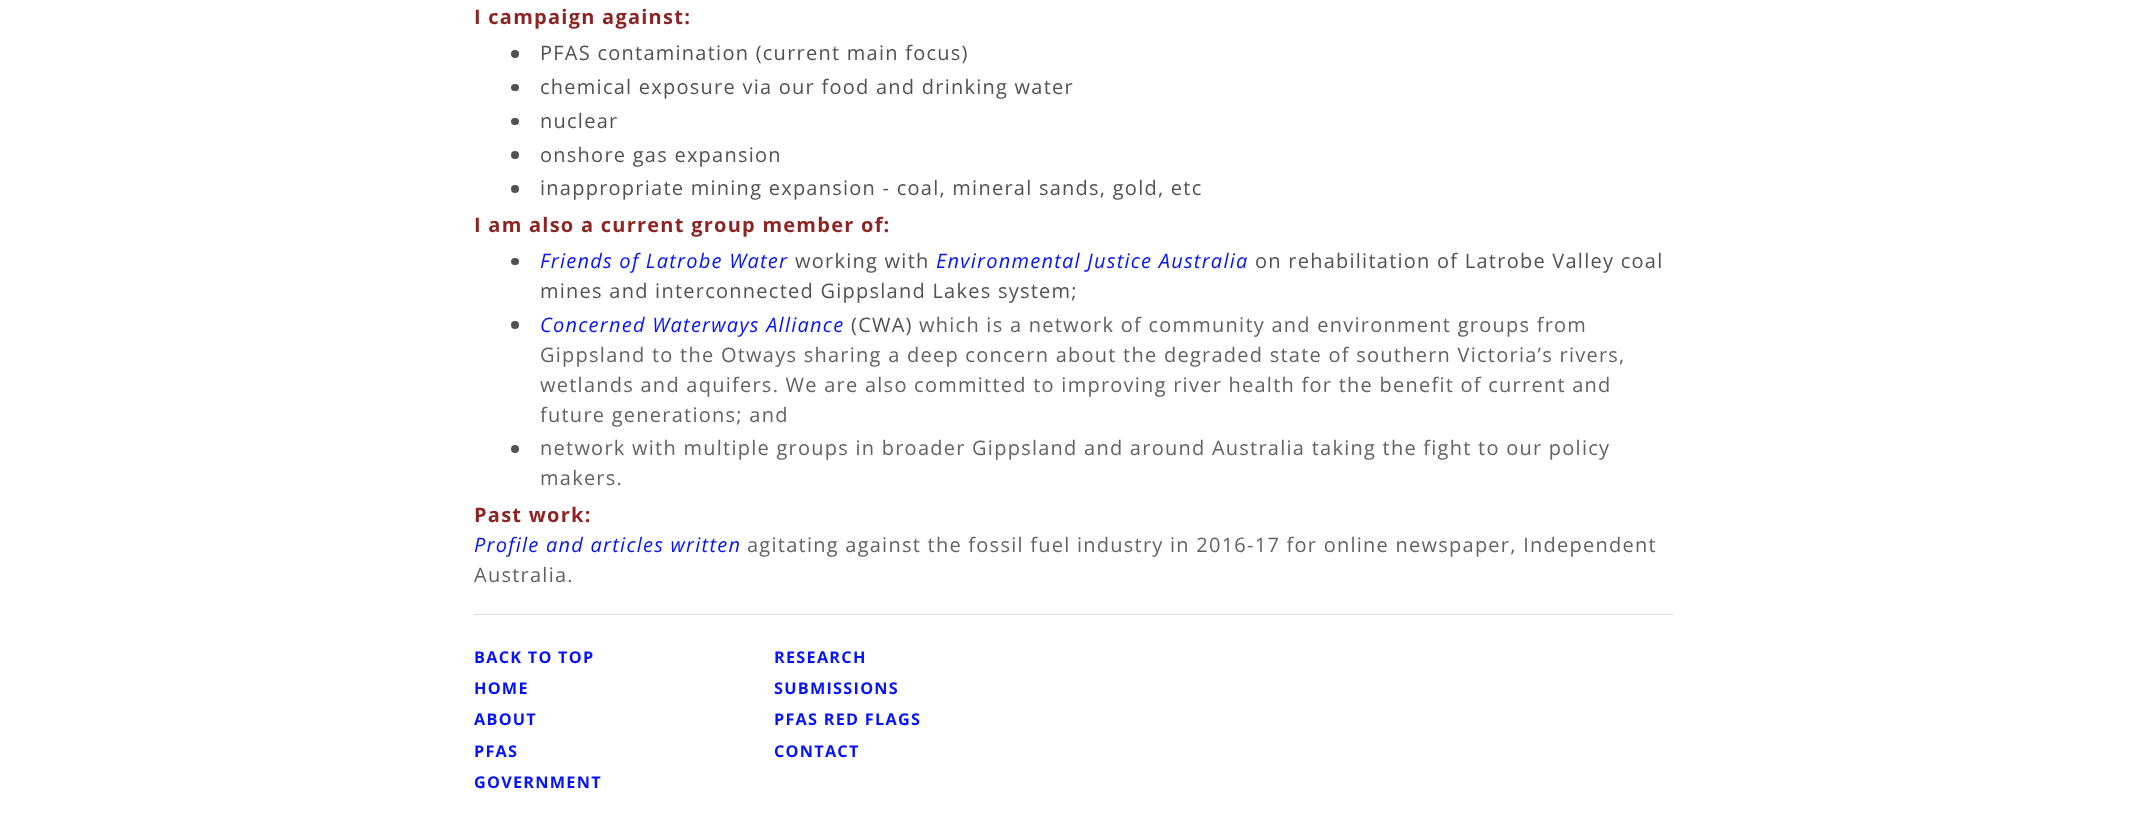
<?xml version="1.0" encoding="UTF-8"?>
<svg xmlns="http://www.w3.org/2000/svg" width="2147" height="824">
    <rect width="100%" height="100%" fill="#FFFFFF"/>
    <text x="474" y="24" font-family="Open Sans" font-size="20" font-weight="700" letter-spacing="1.25" fill="#8D2424">I campaign against:</text>
    <circle cx="515" cy="54" r="4" fill="#515151"/>
    <text x="540" y="60" font-family="Open Sans" font-size="20" letter-spacing="1.25" fill="#515151">PFAS contamination (current main focus)</text>
    <rect x="511" y="84" width="8" height="7" rx="3.5" fill="#515151"/>
    <text x="540" y="94" font-family="Open Sans" font-size="20" letter-spacing="1.25" fill="#515151">chemical exposure via our food and drinking water</text>
    <rect x="511" y="118" width="8" height="7" rx="3.5" fill="#515151"/>
    <text x="540" y="128" font-family="Open Sans" font-size="20" letter-spacing="1.25" fill="#515151">nuclear</text>
    <circle cx="515" cy="155" r="4" fill="#515151"/>
    <text x="540" y="162" font-family="Open Sans" font-size="20" letter-spacing="1.25" fill="#515151">onshore gas expansion</text>
    <circle cx="515" cy="189" r="4" fill="#515151"/>
    <text x="540" y="195" font-family="Open Sans" font-size="20" letter-spacing="1.25" fill="#515151">inappropriate mining expansion - coal, mineral sands, gold, etc</text>
    <text x="474" y="232" font-family="Open Sans" font-size="20" font-weight="700" letter-spacing="1.25" fill="#8D2424">I am also a current group member of:</text>
    <rect x="511" y="258" width="8" height="7" rx="3.5" fill="#515151"/>
    <text x="540" y="268" font-family="Open Sans" font-size="20" font-style="italic" letter-spacing="1.25" fill="#0412FD">Friends of Latrobe Water</text>
    <text x="795" y="268" font-family="Open Sans" font-size="20" letter-spacing="1.25" fill="#515151">working with</text>
    <text x="936" y="268" font-family="Open Sans" font-size="20" font-style="italic" letter-spacing="1.25" fill="#0412FD">Environmental Justice Australia</text>
    <text x="1255" y="268" font-family="Open Sans" font-size="20" letter-spacing="1.25" fill="#515151">on rehabilitation of Latrobe Valley coal</text>
    <text x="540" y="298" font-family="Open Sans" font-size="20" letter-spacing="1.25" fill="#515151">mines and interconnected Gippsland Lakes system;</text>
    <circle cx="515" cy="325" r="4" fill="#515151"/>
    <text x="540" y="332" font-family="Open Sans" font-size="20" font-style="italic" letter-spacing="1.25" fill="#0412FD">Concerned Waterways Alliance</text>
    <text x="851" y="332" font-family="Open Sans" font-size="20" letter-spacing="1.25" fill="#515151">(CWA)</text>
    <text x="919" y="332" font-family="Open Sans" font-size="20" letter-spacing="1.25" fill="#626262">which is a network of community and environment groups from</text>
    <text font-family="Open Sans" font-size="20" letter-spacing="1.25" fill="#626262">
        <tspan x="540" y="362">Gippsland to the Otways sharing a deep concern about the degraded state of southern Victoria’s rivers,</tspan>
        <tspan x="540" y="392">wetlands and aquifers. We are also committed to improving river health for the benefit of current and</tspan>
        <tspan x="540" y="422">future generations; and</tspan>
    </text>
    <circle cx="515" cy="449" r="4" fill="#515151"/>
    <text font-family="Open Sans" font-size="20" letter-spacing="1.25" fill="#626262">
        <tspan x="540" y="455">network with multiple groups in broader Gippsland and around Australia taking the fight to our policy</tspan>
        <tspan x="540" y="485">makers.</tspan>
    </text>
    <text x="474" y="522" font-family="Open Sans" font-size="20" font-weight="700" letter-spacing="1.25" fill="#8D2424">Past work:</text>
    <text x="474" y="552" font-family="Open Sans" font-size="20" font-style="italic" letter-spacing="1.25" fill="#0412FD">Profile and articles written</text>
    <text x="747" y="552" font-family="Open Sans" font-size="20" letter-spacing="1.25" fill="#626262">agitating against the fossil fuel industry in 2016-17 for online newspaper, Independent</text>
    <text x="474" y="582" font-family="Open Sans" font-size="20" letter-spacing="1.25" fill="#626262">Australia.</text>
    <rect x="474" y="614" width="1200" height="1" fill="#DEDEDE"/>
    <text font-family="Open Sans" font-size="16.25" font-weight="700" letter-spacing="1.25" fill="#0412FD">
        <tspan x="474" y="663">BACK TO TOP</tspan>
        <tspan x="474" y="694">HOME</tspan>
        <tspan x="474" y="725">ABOUT</tspan>
        <tspan x="474" y="757">PFAS</tspan>
        <tspan x="474" y="788">GOVERNMENT</tspan>
    </text>
    <text font-family="Open Sans" font-size="16.25" font-weight="700" letter-spacing="1.25" fill="#0412FD">
        <tspan x="774" y="663">RESEARCH</tspan>
        <tspan x="774" y="694">SUBMISSIONS</tspan>
        <tspan x="774" y="725">PFAS RED FLAGS</tspan>
        <tspan x="774" y="757">CONTACT</tspan>
    </text>
</svg>
